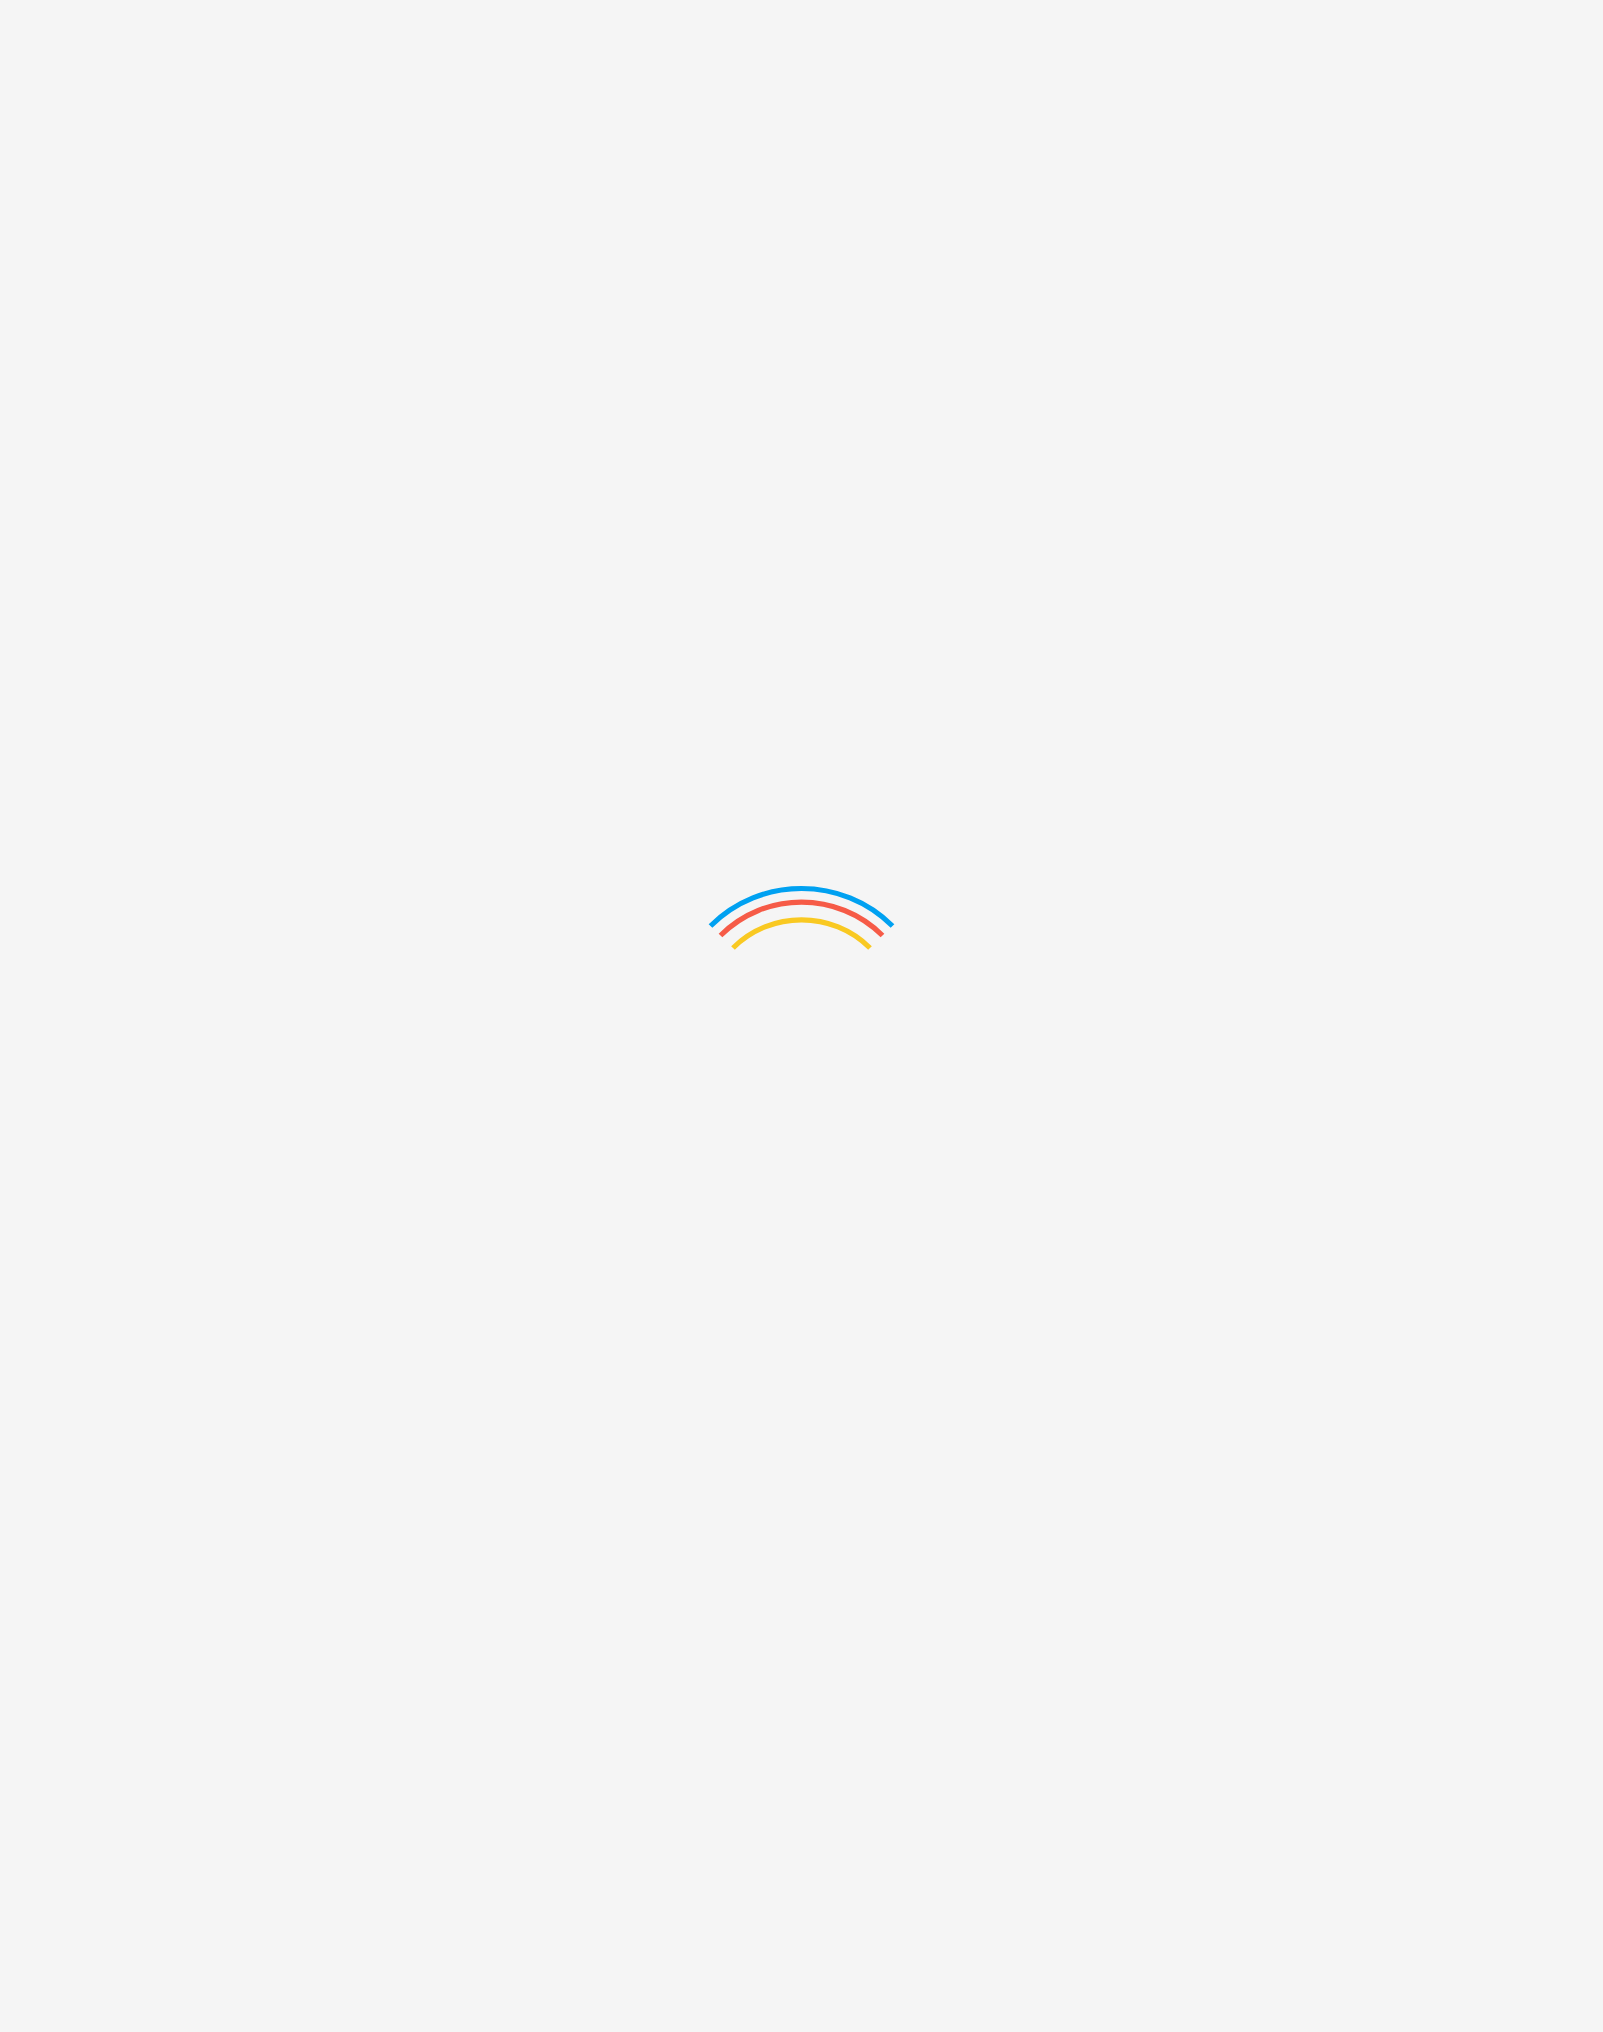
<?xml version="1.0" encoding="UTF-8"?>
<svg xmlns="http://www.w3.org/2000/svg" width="1603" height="2032">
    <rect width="100%" height="100%" fill="#F5F5F5"/>
    <path d="M 710.5 926 C 760.5 876 842.5 876 892.5 926" fill="none" stroke="#00A1F1" stroke-width="5.2"/>
    <path d="M 720.5 935.5 C 765 891 838 891 882.5 935.5" fill="none" stroke="#F65B47" stroke-width="5.2"/>
    <path d="M 733 948 C 770.5 910.5 832.5 910.5 870 948" fill="none" stroke="#F9C922" stroke-width="5.2"/>
</svg>
